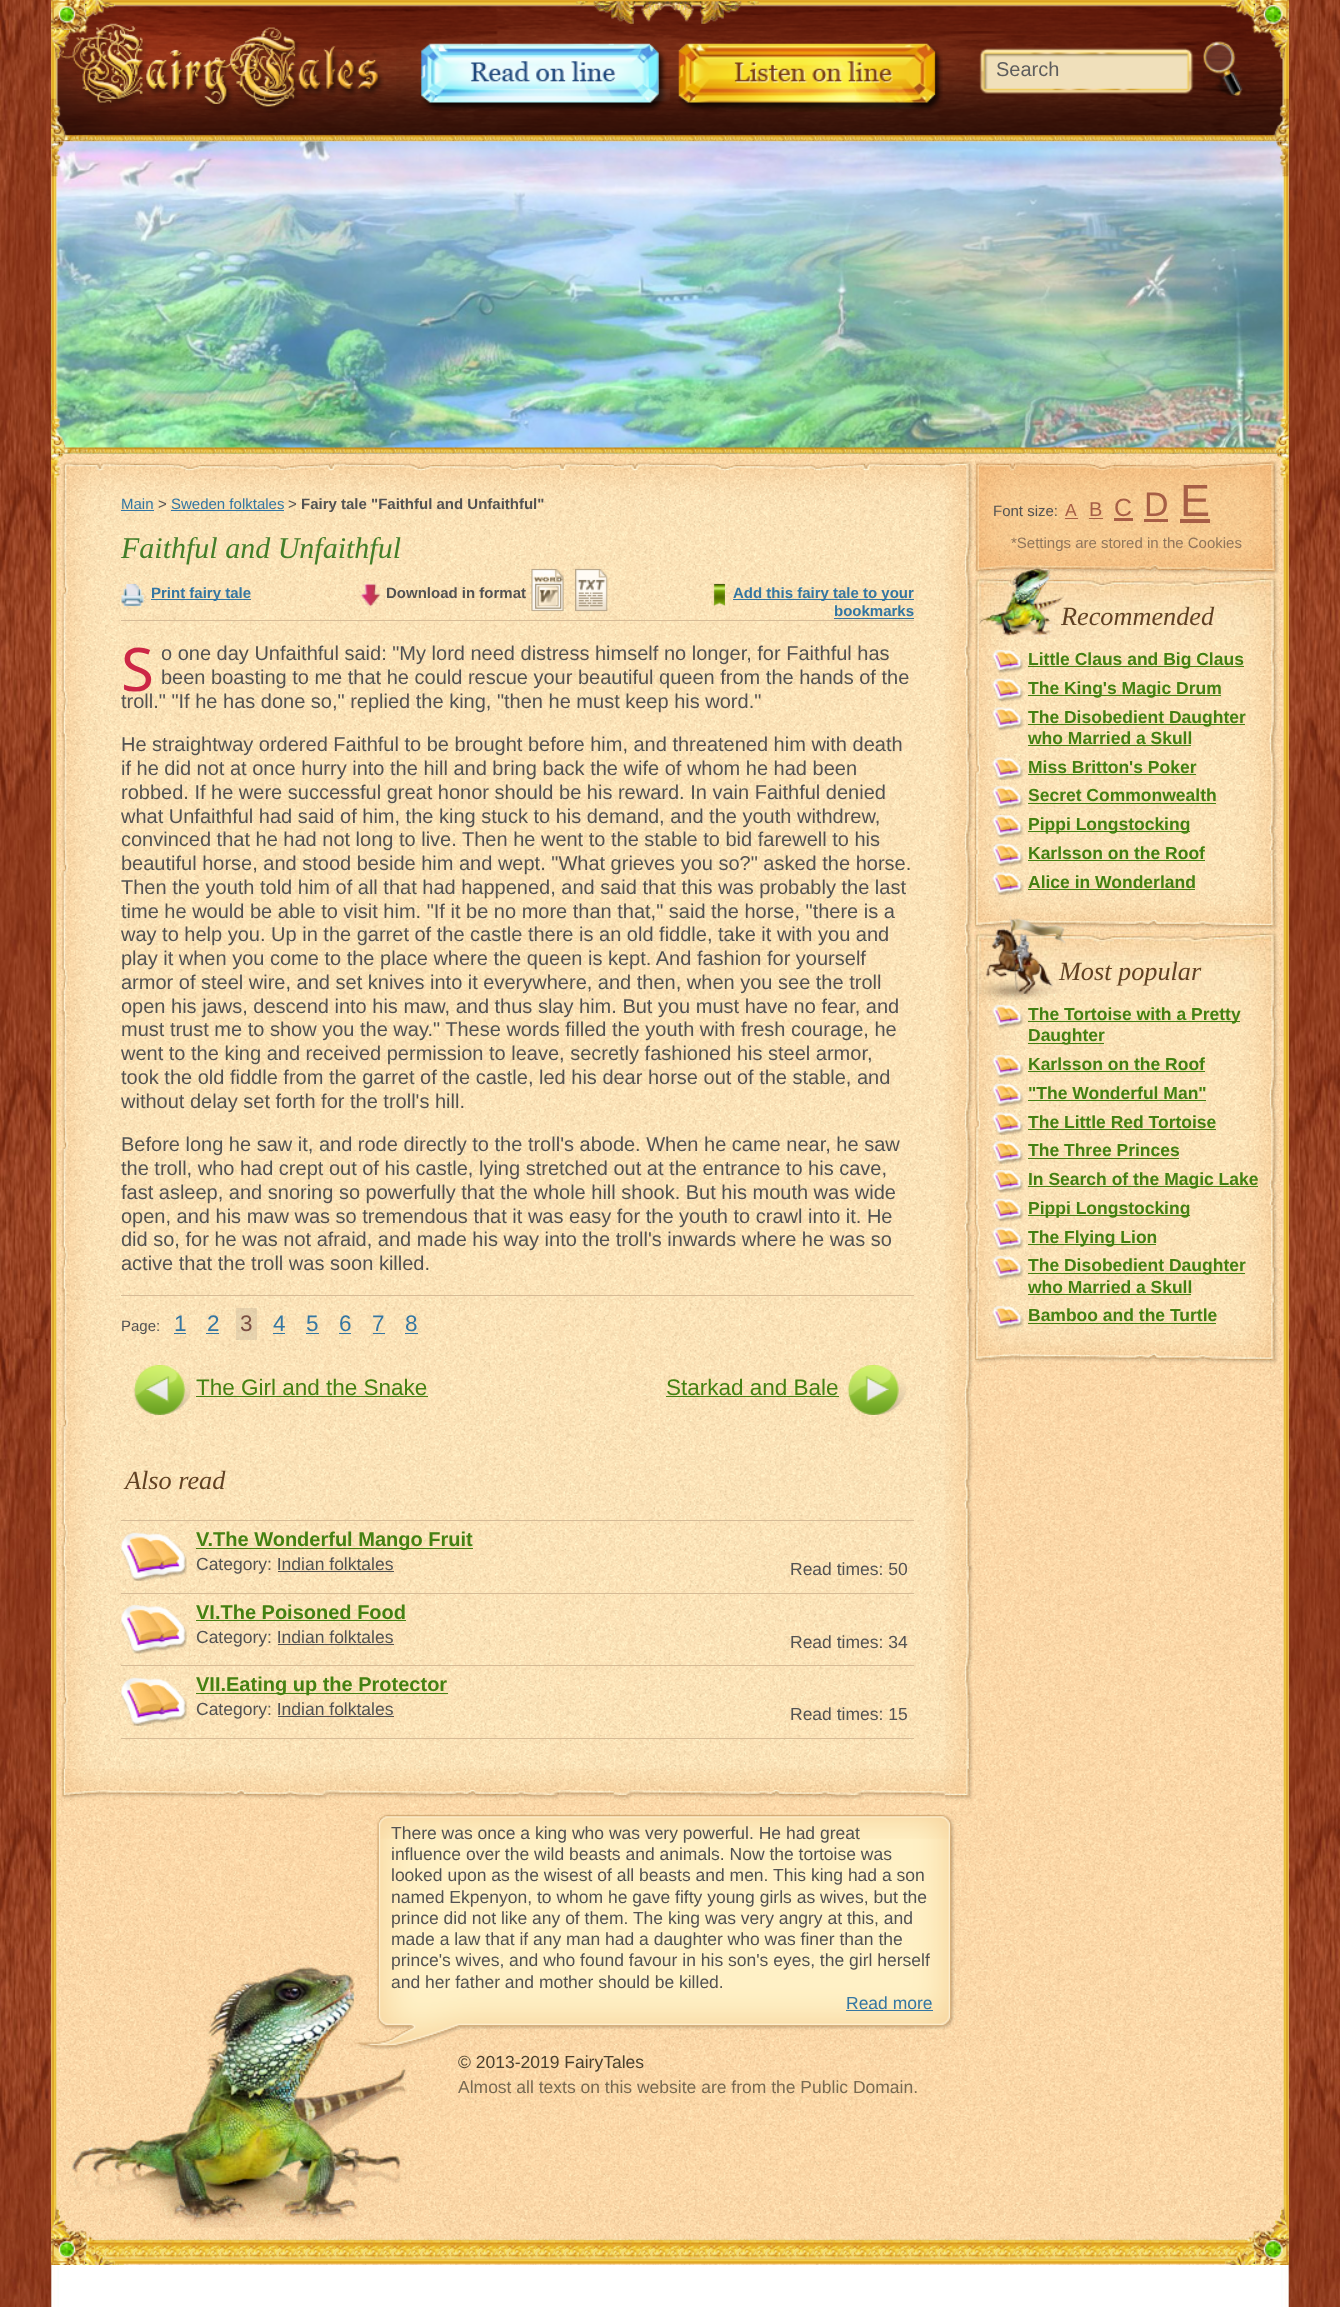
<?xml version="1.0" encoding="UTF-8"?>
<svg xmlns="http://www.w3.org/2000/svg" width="1340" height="2307">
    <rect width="100%" height="100%" fill="#FFFFFF"/>
    <image x="0" y="0" width="1340" height="2307" href="img_01.png"/>
    <image x="51" y="0" width="1238" height="2265" href="img_02.png"/>
    <image x="51" y="0" width="1238" height="142" href="img_03.png"/>
    <image x="60" y="23" width="324" height="90" href="img_04.png"/>
    <image x="421" y="43" width="249" height="68" href="img_05.png"/>
    <image x="678" y="43" width="265" height="69" href="img_06.png"/>
    <image x="979" y="47" width="215" height="47" href="img_07.png"/>
    <text x="996" y="76" font-family="Liberation Sans" font-size="20" fill="#5D5D5D">Search</text>
    <image x="1203" y="41" width="40" height="55" href="img_08.png"/>
    <image x="51" y="453" width="1238" height="39" href="img_11.png"/>
    <image x="51" y="141" width="1238" height="313" href="img_09.png"/>
    <image x="51" y="141" width="1238" height="313" href="img_10.png"/>
    <image x="973" y="460" width="306" height="117" href="img_25.png"/>
    <image x="973" y="460" width="306" height="32" href="img_26.png"/>
    <image x="973" y="545" width="306" height="32" href="img_27.png"/>
    <image x="973" y="576" width="306" height="356" href="img_28.png"/>
    <image x="973" y="576" width="306" height="63" href="img_29.png"/>
    <image x="973" y="868" width="306" height="64" href="img_39.png"/>
    <image x="973" y="931" width="306" height="434" href="img_40.png"/>
    <image x="973" y="931" width="306" height="63" href="img_41.png"/>
    <image x="973" y="1302" width="306" height="63" href="img_51.png"/>
    <image x="61" y="460" width="913" height="1342" href="img_12.png"/>
    <image x="61" y="460" width="913" height="63" href="img_13.png"/>
    <text x="121" y="509" font-family="Liberation Sans" font-size="15" fill="#3476A2">Main</text>
    <rect x="121" y="510" width="33" height="1" fill="#3476A2"/>
    <text x="158" y="509" font-family="Liberation Sans" font-size="15" fill="#525252">&gt;</text>
    <text x="171" y="509" font-family="Liberation Sans" font-size="15" fill="#3476A2">Sweden folktales</text>
    <rect x="171" y="510" width="113" height="1" fill="#3476A2"/>
    <text x="288" y="509" font-family="Liberation Sans" font-size="15" fill="#525252">&gt;</text>
    <text x="301" y="509" font-family="Liberation Sans" font-size="15" font-weight="700" fill="#525252">Fairy tale "Faithful and Unfaithful"</text>
    <text x="121" y="558" font-family="Liberation Serif" font-size="30" font-style="italic" fill="#437E29">Faithful and Unfaithful</text>
    <image x="121" y="583" width="23" height="24" href="img_14.png"/>
    <rect x="151" y="599" width="100" height="1" fill="#3476A2"/>
    <text x="151" y="598" font-family="Liberation Sans" font-size="15" font-weight="700" fill="#3476A2">Print fairy tale</text>
    <image x="361" y="583" width="20" height="24" href="img_15.png"/>
    <text x="386" y="598" font-family="Liberation Sans" font-size="15" font-weight="700" fill="#525252">Download in format</text>
    <image x="531" y="568" width="33" height="44" href="img_16.png"/>
    <image x="575" y="568" width="33" height="44" href="img_17.png"/>
    <image x="713" y="583" width="12" height="23" href="img_18.png"/>
    <rect x="733" y="599" width="181" height="1" fill="#3476A2"/>
    <text x="733" y="598" font-family="Liberation Sans" font-size="15" font-weight="700" fill="#3476A2">Add this fairy tale to your</text>
    <text x="834" y="616" font-family="Liberation Sans" font-size="15" font-weight="700" fill="#3476A2">bookmarks</text>
    <rect x="834" y="618" width="80" height="1" fill="#3476A2"/>
    <rect x="121" y="620" width="793" height="1" fill="#D6BB96"/>
    <rect x="121" y="1295" width="793" height="1" fill="#D6BB96"/>
    <text x="121" y="691" font-family="Noto Sans" font-size="60" fill="#CC2646">S</text>
    <text font-family="Liberation Sans" font-size="20" fill="#525252">
        <tspan x="161" y="660">o one day Unfaithful said: "My lord need distress himself no longer, for Faithful has</tspan>
        <tspan x="161" y="684">been boasting to me that he could rescue your beautiful queen from the hands of the</tspan>
    </text>
    <text x="121" y="708" font-family="Liberation Sans" font-size="20" fill="#525252">troll." "If he has done so," replied the king, "then he must keep his word."</text>
    <text font-family="Liberation Sans" font-size="20" fill="#525252">
        <tspan x="121" y="751">He straightway ordered Faithful to be brought before him, and threatened him with death</tspan>
        <tspan x="121" y="775">if he did not at once hurry into the hill and bring back the wife of whom he had been</tspan>
        <tspan x="121" y="799">robbed. If he were successful great honor should be his reward. In vain Faithful denied</tspan>
        <tspan x="121" y="823">what Unfaithful had said of him, the king stuck to his demand, and the youth withdrew,</tspan>
        <tspan x="121" y="846">convinced that he had not long to live. Then he went to the stable to bid farewell to his</tspan>
        <tspan x="121" y="870">beautiful horse, and stood beside him and wept. "What grieves you so?" asked the horse.</tspan>
        <tspan x="121" y="894">Then the youth told him of all that had happened, and said that this was probably the last</tspan>
        <tspan x="121" y="918">time he would be able to visit him. "If it be no more than that," said the horse, "there is a</tspan>
        <tspan x="121" y="941">way to help you. Up in the garret of the castle there is an old fiddle, take it with you and</tspan>
        <tspan x="121" y="965">play it when you come to the place where the queen is kept. And fashion for yourself</tspan>
        <tspan x="121" y="989">armor of steel wire, and set knives into it everywhere, and then, when you see the troll</tspan>
        <tspan x="121" y="1013">open his jaws, descend into his maw, and thus slay him. But you must have no fear, and</tspan>
        <tspan x="121" y="1036">must trust me to show you the way." These words filled the youth with fresh courage, he</tspan>
        <tspan x="121" y="1060">went to the king and received permission to leave, secretly fashioned his steel armor,</tspan>
        <tspan x="121" y="1084">took the old fiddle from the garret of the castle, led his dear horse out of the stable, and</tspan>
        <tspan x="121" y="1108">without delay set forth for the troll's hill.</tspan>
    </text>
    <text font-family="Liberation Sans" font-size="20" fill="#525252">
        <tspan x="121" y="1151">Before long he saw it, and rode directly to the troll's abode. When he came near, he saw</tspan>
        <tspan x="121" y="1175">the troll, who had crept out of his castle, lying stretched out at the entrance to his cave,</tspan>
        <tspan x="121" y="1199">fast asleep, and snoring so powerfully that the whole hill shook. But his mouth was wide</tspan>
        <tspan x="121" y="1223">open, and his maw was so tremendous that it was easy for the youth to crawl into it. He</tspan>
        <tspan x="121" y="1246">did so, for he was not afraid, and made his way into the troll's inwards where he was so</tspan>
        <tspan x="121" y="1270">active that the troll was soon killed.</tspan>
    </text>
    <text x="121" y="1331" font-family="Liberation Sans" font-size="15" fill="#525252">Page:</text>
    <text x="174" y="1331" font-family="Liberation Sans" font-size="22.5" fill="#3476A2">1</text>
    <rect x="174" y="1333" width="12" height="1" fill="#3476A2"/>
    <text x="207" y="1331" font-family="Liberation Sans" font-size="22.5" fill="#3476A2">2</text>
    <rect x="206" y="1333" width="13" height="1" fill="#3476A2"/>
    <rect x="236" y="1308" width="21" height="32" fill="#C6B69B" fill-opacity="0.4"/>
    <text x="240" y="1331" font-family="Liberation Sans" font-size="22.5" fill="#794E44">3</text>
    <text x="273" y="1331" font-family="Liberation Sans" font-size="22.5" fill="#3476A2">4</text>
    <rect x="273" y="1333" width="12" height="1" fill="#3476A2"/>
    <text x="306" y="1331" font-family="Liberation Sans" font-size="22.5" fill="#3476A2">5</text>
    <rect x="306" y="1333" width="13" height="1" fill="#3476A2"/>
    <text x="339" y="1331" font-family="Liberation Sans" font-size="22.5" fill="#3476A2">6</text>
    <rect x="339" y="1333" width="12" height="1" fill="#3476A2"/>
    <text x="372" y="1331" font-family="Liberation Sans" font-size="22.5" fill="#3476A2">7</text>
    <rect x="373" y="1333" width="12" height="1" fill="#3476A2"/>
    <text x="405" y="1331" font-family="Liberation Sans" font-size="22.5" fill="#3476A2">8</text>
    <rect x="405" y="1333" width="13" height="1" fill="#3476A2"/>
    <image x="134" y="1365" width="57" height="50" href="img_19.png"/>
    <text x="196" y="1395" font-family="Liberation Sans" font-size="22.5" fill="#448112">The Girl and the Snake</text>
    <rect x="196" y="1396" width="232" height="1" fill="#448112"/>
    <text x="666" y="1395" font-family="Liberation Sans" font-size="22.5" fill="#448112">Starkad and Bale</text>
    <rect x="666" y="1396" width="173" height="1" fill="#448112"/>
    <image x="847" y="1365" width="59" height="50" href="img_20.png"/>
    <text x="125" y="1489" font-family="Liberation Serif" font-size="26.25" font-style="italic" fill="#604123">Also read</text>
    <rect x="121" y="1520" width="793" height="1" fill="#D6BB96"/>
    <rect x="121" y="1593" width="793" height="1" fill="#D6BB96"/>
    <image x="121" y="1532" width="66" height="49" href="img_21.png"/>
    <rect x="196" y="1548" width="277" height="1" fill="#448112"/>
    <text x="196" y="1546" font-family="Liberation Sans" font-size="20" font-weight="700" fill="#448112">V.The Wonderful Mango Fruit</text>
    <text x="196" y="1570" font-family="Liberation Sans" font-size="17.5" fill="#525252">Category: Indian folktales</text>
    <rect x="278" y="1571" width="116" height="1" fill="#525252"/>
    <text x="790" y="1575" font-family="Liberation Sans" font-size="17.5" fill="#525252">Read times: 50</text>
    <rect x="121" y="1665" width="793" height="1" fill="#D6BB96"/>
    <image x="121" y="1605" width="66" height="49" href="img_22.png"/>
    <text x="196" y="1619" font-family="Liberation Sans" font-size="20" font-weight="700" fill="#448112">VI.The Poisoned Food</text>
    <rect x="196" y="1620" width="210" height="1" fill="#448112"/>
    <text x="196" y="1643" font-family="Liberation Sans" font-size="17.5" fill="#525252">Category: Indian folktales</text>
    <rect x="278" y="1644" width="116" height="1" fill="#525252"/>
    <text x="790" y="1648" font-family="Liberation Sans" font-size="17.5" fill="#525252">Read times: 34</text>
    <image x="61" y="1738" width="913" height="64" href="img_24.png"/>
    <rect x="121" y="1738" width="793" height="1" fill="#D6BB96"/>
    <image x="121" y="1677" width="66" height="49" href="img_23.png"/>
    <rect x="196" y="1693" width="252" height="1" fill="#448112"/>
    <text x="196" y="1691" font-family="Liberation Sans" font-size="20" font-weight="700" fill="#448112">VII.Eating up the Protector</text>
    <text x="196" y="1715" font-family="Liberation Sans" font-size="17.5" fill="#525252">Category: Indian folktales</text>
    <rect x="278" y="1716" width="116" height="1" fill="#525252"/>
    <text x="790" y="1720" font-family="Liberation Sans" font-size="17.5" fill="#525252">Read times: 15</text>
    <text x="993" y="516" font-family="Liberation Sans" font-size="15" fill="#525252">Font size:</text>
    <text x="1065" y="516" font-family="Liberation Sans" font-size="17.5" fill="#A65E46">A</text>
    <rect x="1065" y="518" width="13" height="1" fill="#A65E46"/>
    <text x="1089" y="516" font-family="Liberation Sans" font-size="20" fill="#A65E46">B</text>
    <rect x="1089" y="518" width="14" height="1" fill="#A65E46"/>
    <text x="1114" y="516" font-family="Liberation Sans" font-size="25" fill="#A65E46">C</text>
    <rect x="1114" y="518" width="19" height="3" fill="#A65E46"/>
    <text x="1144" y="516" font-family="Liberation Sans" font-size="34" fill="#A65E46">D</text>
    <rect x="1144" y="519" width="24" height="3" fill="#A65E46"/>
    <text x="1180" y="516" font-family="Liberation Sans" font-size="45" fill="#A65E46">E</text>
    <rect x="1180" y="519" width="30" height="4" fill="#A65E46"/>
    <text x="1011" y="548" font-family="Liberation Sans" font-size="15" fill="#90755B">*Settings are stored in the Cookies</text>
    <image x="980" y="567" width="84" height="70" href="img_30.png"/>
    <text x="1061" y="625" font-family="Liberation Serif" font-size="26.25" font-style="italic" fill="#604123">Recommended</text>
    <image x="992" y="650" width="32" height="23" href="img_31.png"/>
    <rect x="1028" y="666" width="216" height="1" fill="#448112"/>
    <text x="1028" y="665" font-family="Liberation Sans" font-size="17.5" font-weight="700" fill="#448112">Little Claus and Big Claus</text>
    <image x="992" y="678" width="32" height="24" href="img_32.png"/>
    <rect x="1028" y="695" width="193" height="1" fill="#448112"/>
    <text x="1028" y="694" font-family="Liberation Sans" font-size="17.5" font-weight="700" fill="#448112">The King's Magic Drum</text>
    <image x="992" y="707" width="32" height="24" href="img_33.png"/>
    <rect x="1028" y="724" width="217" height="1" fill="#448112"/>
    <text font-family="Liberation Sans" font-size="17.5" font-weight="700" fill="#448112">
        <tspan x="1028" y="723">The Disobedient Daughter</tspan>
        <tspan x="1028" y="744">who Married a Skull</tspan>
    </text>
    <rect x="1028" y="745" width="163" height="1" fill="#448112"/>
    <image x="992" y="757" width="32" height="23" href="img_34.png"/>
    <text x="1028" y="773" font-family="Liberation Sans" font-size="17.5" font-weight="700" fill="#448112">Miss Britton's Poker</text>
    <rect x="1028" y="774" width="168" height="1" fill="#448112"/>
    <image x="992" y="786" width="32" height="23" href="img_35.png"/>
    <text x="1028" y="801" font-family="Liberation Sans" font-size="17.5" font-weight="700" fill="#448112">Secret Commonwealth</text>
    <rect x="1028" y="803" width="188" height="1" fill="#448112"/>
    <image x="992" y="815" width="32" height="23" href="img_36.png"/>
    <rect x="1028" y="831" width="162" height="1" fill="#448112"/>
    <text x="1028" y="830" font-family="Liberation Sans" font-size="17.5" font-weight="700" fill="#448112">Pippi Longstocking</text>
    <image x="992" y="843" width="32" height="24" href="img_37.png"/>
    <text x="1028" y="859" font-family="Liberation Sans" font-size="17.5" font-weight="700" fill="#448112">Karlsson on the Roof</text>
    <rect x="1028" y="860" width="177" height="1" fill="#448112"/>
    <image x="992" y="872" width="32" height="23" href="img_38.png"/>
    <text x="1028" y="888" font-family="Liberation Sans" font-size="17.5" font-weight="700" fill="#448112">Alice in Wonderland</text>
    <rect x="1028" y="889" width="167" height="1" fill="#448112"/>
    <image x="976" y="916" width="90" height="84" href="img_42.png"/>
    <text x="1059" y="980" font-family="Liberation Serif" font-size="26.25" font-style="italic" fill="#604123">Most popular</text>
    <image x="992" y="1005" width="32" height="24" href="img_43.png"/>
    <rect x="1028" y="1021" width="212" height="1" fill="#448112"/>
    <text x="1028" y="1020" font-family="Liberation Sans" font-size="17.5" font-weight="700" fill="#448112">The Tortoise with a Pretty</text>
    <rect x="1028" y="1043" width="76" height="1" fill="#448112"/>
    <text x="1028" y="1041" font-family="Liberation Sans" font-size="17.5" font-weight="700" fill="#448112">Daughter</text>
    <image x="992" y="1055" width="32" height="23" href="img_44.png"/>
    <text x="1028" y="1070" font-family="Liberation Sans" font-size="17.5" font-weight="700" fill="#448112">Karlsson on the Roof</text>
    <rect x="1028" y="1071" width="177" height="1" fill="#448112"/>
    <image x="992" y="1083" width="32" height="24" href="img_45.png"/>
    <text x="1028" y="1099" font-family="Liberation Sans" font-size="17.5" font-weight="700" fill="#448112">"The Wonderful Man"</text>
    <rect x="1028" y="1100" width="178" height="1" fill="#448112"/>
    <image x="992" y="1112" width="32" height="23" href="img_34.png"/>
    <text x="1028" y="1128" font-family="Liberation Sans" font-size="17.5" font-weight="700" fill="#448112">The Little Red Tortoise</text>
    <rect x="1028" y="1129" width="188" height="1" fill="#448112"/>
    <image x="992" y="1141" width="32" height="23" href="img_46.png"/>
    <text x="1028" y="1156" font-family="Liberation Sans" font-size="17.5" font-weight="700" fill="#448112">The Three Princes</text>
    <rect x="1028" y="1158" width="151" height="1" fill="#448112"/>
    <image x="992" y="1170" width="32" height="23" href="img_47.png"/>
    <rect x="1028" y="1186" width="230" height="1" fill="#448112"/>
    <text x="1028" y="1185" font-family="Liberation Sans" font-size="17.5" font-weight="700" fill="#448112">In Search of the Magic Lake</text>
    <image x="992" y="1198" width="32" height="24" href="img_37.png"/>
    <rect x="1028" y="1215" width="162" height="1" fill="#448112"/>
    <text x="1028" y="1214" font-family="Liberation Sans" font-size="17.5" font-weight="700" fill="#448112">Pippi Longstocking</text>
    <image x="992" y="1227" width="32" height="23" href="img_48.png"/>
    <rect x="1028" y="1244" width="128" height="1" fill="#448112"/>
    <text x="1028" y="1243" font-family="Liberation Sans" font-size="17.5" font-weight="700" fill="#448112">The Flying Lion</text>
    <image x="992" y="1256" width="32" height="24" href="img_49.png"/>
    <rect x="1028" y="1273" width="217" height="1" fill="#448112"/>
    <text font-family="Liberation Sans" font-size="17.5" font-weight="700" fill="#448112">
        <tspan x="1028" y="1271">The Disobedient Daughter</tspan>
        <tspan x="1028" y="1293">who Married a Skull</tspan>
    </text>
    <rect x="1028" y="1294" width="163" height="1" fill="#448112"/>
    <image x="992" y="1306" width="32" height="23" href="img_50.png"/>
    <text x="1028" y="1321" font-family="Liberation Sans" font-size="17.5" font-weight="700" fill="#448112">Bamboo and the Turtle</text>
    <rect x="1028" y="1323" width="188" height="1" fill="#448112"/>
    <image x="51" y="2195" width="1238" height="70" href="img_52.png"/>
    <image x="66" y="1938" width="361" height="290" href="img_55.png"/>
    <image x="353" y="1813" width="602" height="239" href="img_53.png"/>
    <image x="354" y="1813" width="601" height="26" href="img_54.png"/>
    <text font-family="Liberation Sans" font-size="17.5" fill="#525252">
        <tspan x="391" y="1839">There was once a king who was very powerful. He had great</tspan>
        <tspan x="391" y="1860">influence over the wild beasts and animals. Now the tortoise was</tspan>
        <tspan x="391" y="1881">looked upon as the wisest of all beasts and men. This king had a son</tspan>
        <tspan x="391" y="1903">named Ekpenyon, to whom he gave fifty young girls as wives, but the</tspan>
        <tspan x="391" y="1924">prince did not like any of them. The king was very angry at this, and</tspan>
        <tspan x="391" y="1945">made a law that if any man had a daughter who was finer than the</tspan>
        <tspan x="391" y="1966">prince's wives, and who found favour in his son's eyes, the girl herself</tspan>
        <tspan x="391" y="1988">and her father and mother should be killed.</tspan>
    </text>
    <text x="846" y="2009" font-family="Liberation Sans" font-size="17.5" fill="#3476A2">Read more</text>
    <rect x="846" y="2010" width="87" height="1" fill="#3476A2"/>
    <text x="458" y="2068" font-family="Liberation Sans" font-size="17.5" fill="#49402E">© 2013-2019 FairyTales</text>
    <text x="458" y="2093" font-family="Liberation Sans" font-size="17.5" fill="#776A52">Almost all texts on this website are from the Public Domain.</text>
</svg>
